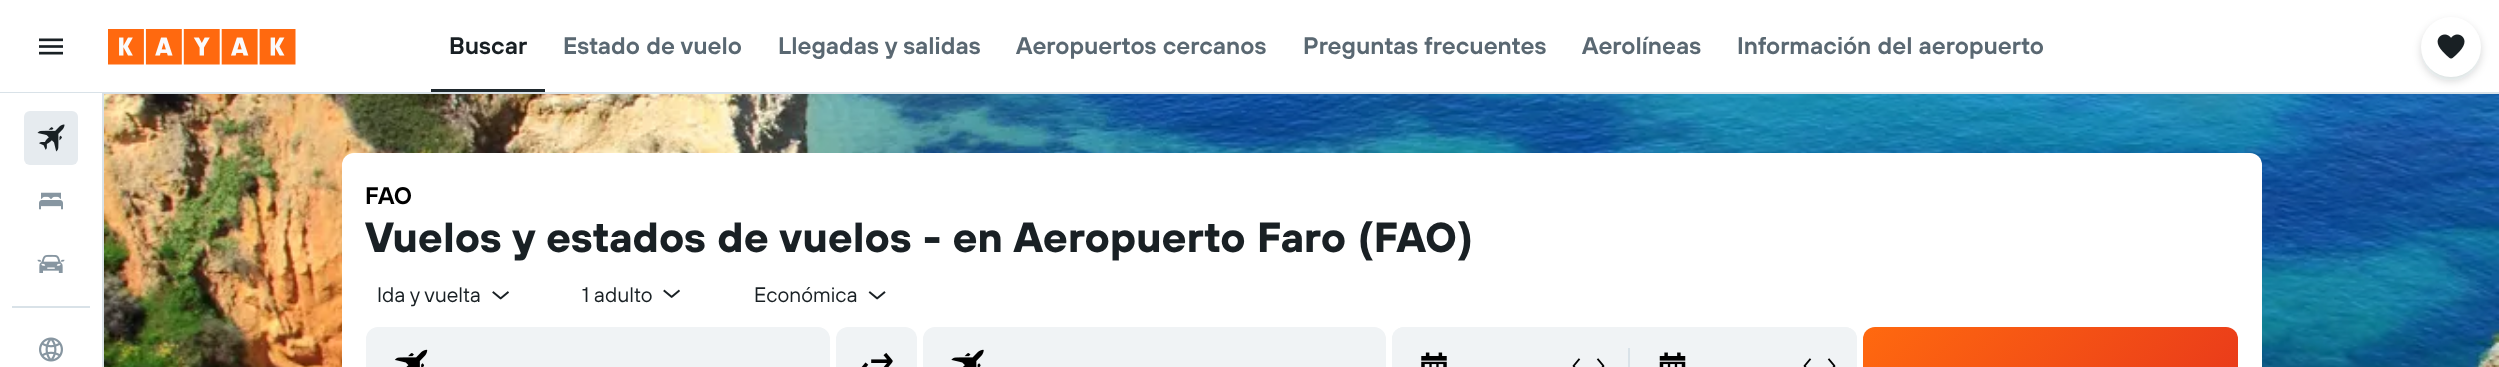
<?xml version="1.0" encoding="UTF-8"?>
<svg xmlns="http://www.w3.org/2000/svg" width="2499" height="367">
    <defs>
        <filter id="blur1" x="-50%" y="-200%" width="200%" height="500%"><feGaussianBlur stdDeviation="4.5"/></filter>
        <linearGradient id="g1" gradientUnits="userSpaceOnUse" x1="1937" y1="253" x2="2164" y2="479"><stop offset="0" stop-color="#FF690F"/><stop offset="1" stop-color="#E8381B"/></linearGradient>
    </defs>
    <rect width="100%" height="100%" fill="#FFFFFF"/>
    <rect x="0" y="92" width="2499" height="2" fill="#D9E2E8"/>
    <image x="39" y="38" width="24" height="17" href="img_01.png"/>
    <image x="108" y="29" width="188" height="36" href="img_02.png"/>
    <rect x="431" y="89" width="114" height="3" fill="#1F282D"/>
    <text x="449" y="54" font-family="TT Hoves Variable" font-size="24" font-weight="600" fill="#192024">Buscar</text>
    <text x="563" y="54" font-family="TT Hoves Variable" font-size="24" font-weight="600" fill="#5A6872">Estado de vuelo</text>
    <text x="778" y="54" font-family="TT Hoves Variable" font-size="24" font-weight="600" fill="#5A6872">Llegadas y salidas</text>
    <text x="1016" y="54" font-family="TT Hoves Variable" font-size="24" font-weight="600" fill="#5A6872">Aeropuertos cercanos</text>
    <text x="1303" y="54" font-family="TT Hoves Variable" font-size="24" font-weight="600" fill="#5A6872">Preguntas frecuentes</text>
    <text x="1582" y="54" font-family="TT Hoves Variable" font-size="24" font-weight="600" fill="#5A6872">Aerolíneas</text>
    <text x="1737" y="54" font-family="TT Hoves Variable" font-size="24" font-weight="600" fill="#5A6872">Información del aeropuerto</text>
    <image x="104" y="94" width="2395" height="273" href="img_08.png"/>
    <rect x="2421" y="21" width="60" height="60" rx="30" fill="#192024" fill-opacity="0.16" filter="url(#blur1)"/>
    <circle cx="2451" cy="47" r="30" fill="#FFFFFF"/>
    <image x="2437" y="34" width="28" height="25" href="img_03.png"/>
    <rect x="0" y="93" width="102" height="1" fill="#FFFFFF"/>
    <rect x="102" y="93" width="2" height="274" fill="#D9E2E8"/>
    <rect x="24" y="111" width="54" height="54" rx="6" fill="#E6EBEF"/>
    <image x="37" y="124" width="28" height="28" href="img_04.png"/>
    <image x="39" y="192" width="24" height="18" href="img_05.png"/>
    <image x="37" y="254" width="28" height="19" href="img_06.png"/>
    <rect x="12" y="306" width="78" height="2" fill="#D9E2E8"/>
    <image x="39" y="337" width="24" height="25" href="img_07.png"/>
    <rect x="342" y="153" width="1920" height="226" rx="12" fill="#FFFFFF"/>
    <text x="365" y="204" font-family="TT Hoves Variable" font-size="24" font-weight="600" fill="#000000">FAO</text>
    <text x="365" y="252" font-family="TT Hoves Variable" font-size="42" font-weight="700" fill="#192024">Vuelos y estados de vuelos - en Aeropuerto Faro (FAO)</text>
    <text x="377" y="302" font-family="TT Hoves Variable" font-size="21" fill="#192024">Ida y vuelta</text>
    <image x="492" y="291" width="17" height="9" href="img_09.png"/>
    <text x="582" y="302" font-family="TT Hoves Variable" font-size="21" fill="#192024">1 adulto</text>
    <image x="663" y="289" width="17" height="9" href="img_10.png"/>
    <text x="754" y="302" font-family="TT Hoves Variable" font-size="21" fill="#192024">Económica</text>
    <image x="868" y="291" width="18" height="9" href="img_11.png"/>
    <rect x="367" y="328" width="462" height="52" rx="11" fill="#F0F3F5" stroke="#F0F3F5" stroke-width="2"/>
    <image x="394" y="349" width="34" height="18" href="img_12.png"/>
    <rect x="836" y="327" width="81" height="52" rx="12" fill="#F0F3F5"/>
    <image x="861" y="352" width="32" height="15" href="img_13.png"/>
    <rect x="924" y="328" width="461" height="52" rx="11" fill="#F0F3F5" stroke="#F0F3F5" stroke-width="2"/>
    <image x="951" y="349" width="33" height="18" href="img_14.png"/>
    <rect x="1392" y="327" width="465" height="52" rx="12" fill="#F0F3F5"/>
    <rect x="1392" y="327" width="234" height="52" rx="12" fill="#F0F3F5"/>
    <image x="1421" y="352" width="26" height="15" href="img_15.png"/>
    <image x="1572" y="358" width="9" height="9" href="img_16.png"/>
    <image x="1596" y="358" width="9" height="9" href="img_17.png"/>
    <rect x="1628" y="348" width="2" height="19" fill="#D9E2E8"/>
    <rect x="1631" y="327" width="226" height="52" rx="12" fill="#F0F3F5"/>
    <image x="1659" y="352" width="27" height="15" href="img_18.png"/>
    <image x="1803" y="358" width="9" height="9" href="img_16.png"/>
    <image x="1827" y="358" width="9" height="9" href="img_17.png"/>
    <rect x="1863" y="327" width="375" height="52" rx="12" fill="url(#g1)"/>
</svg>
